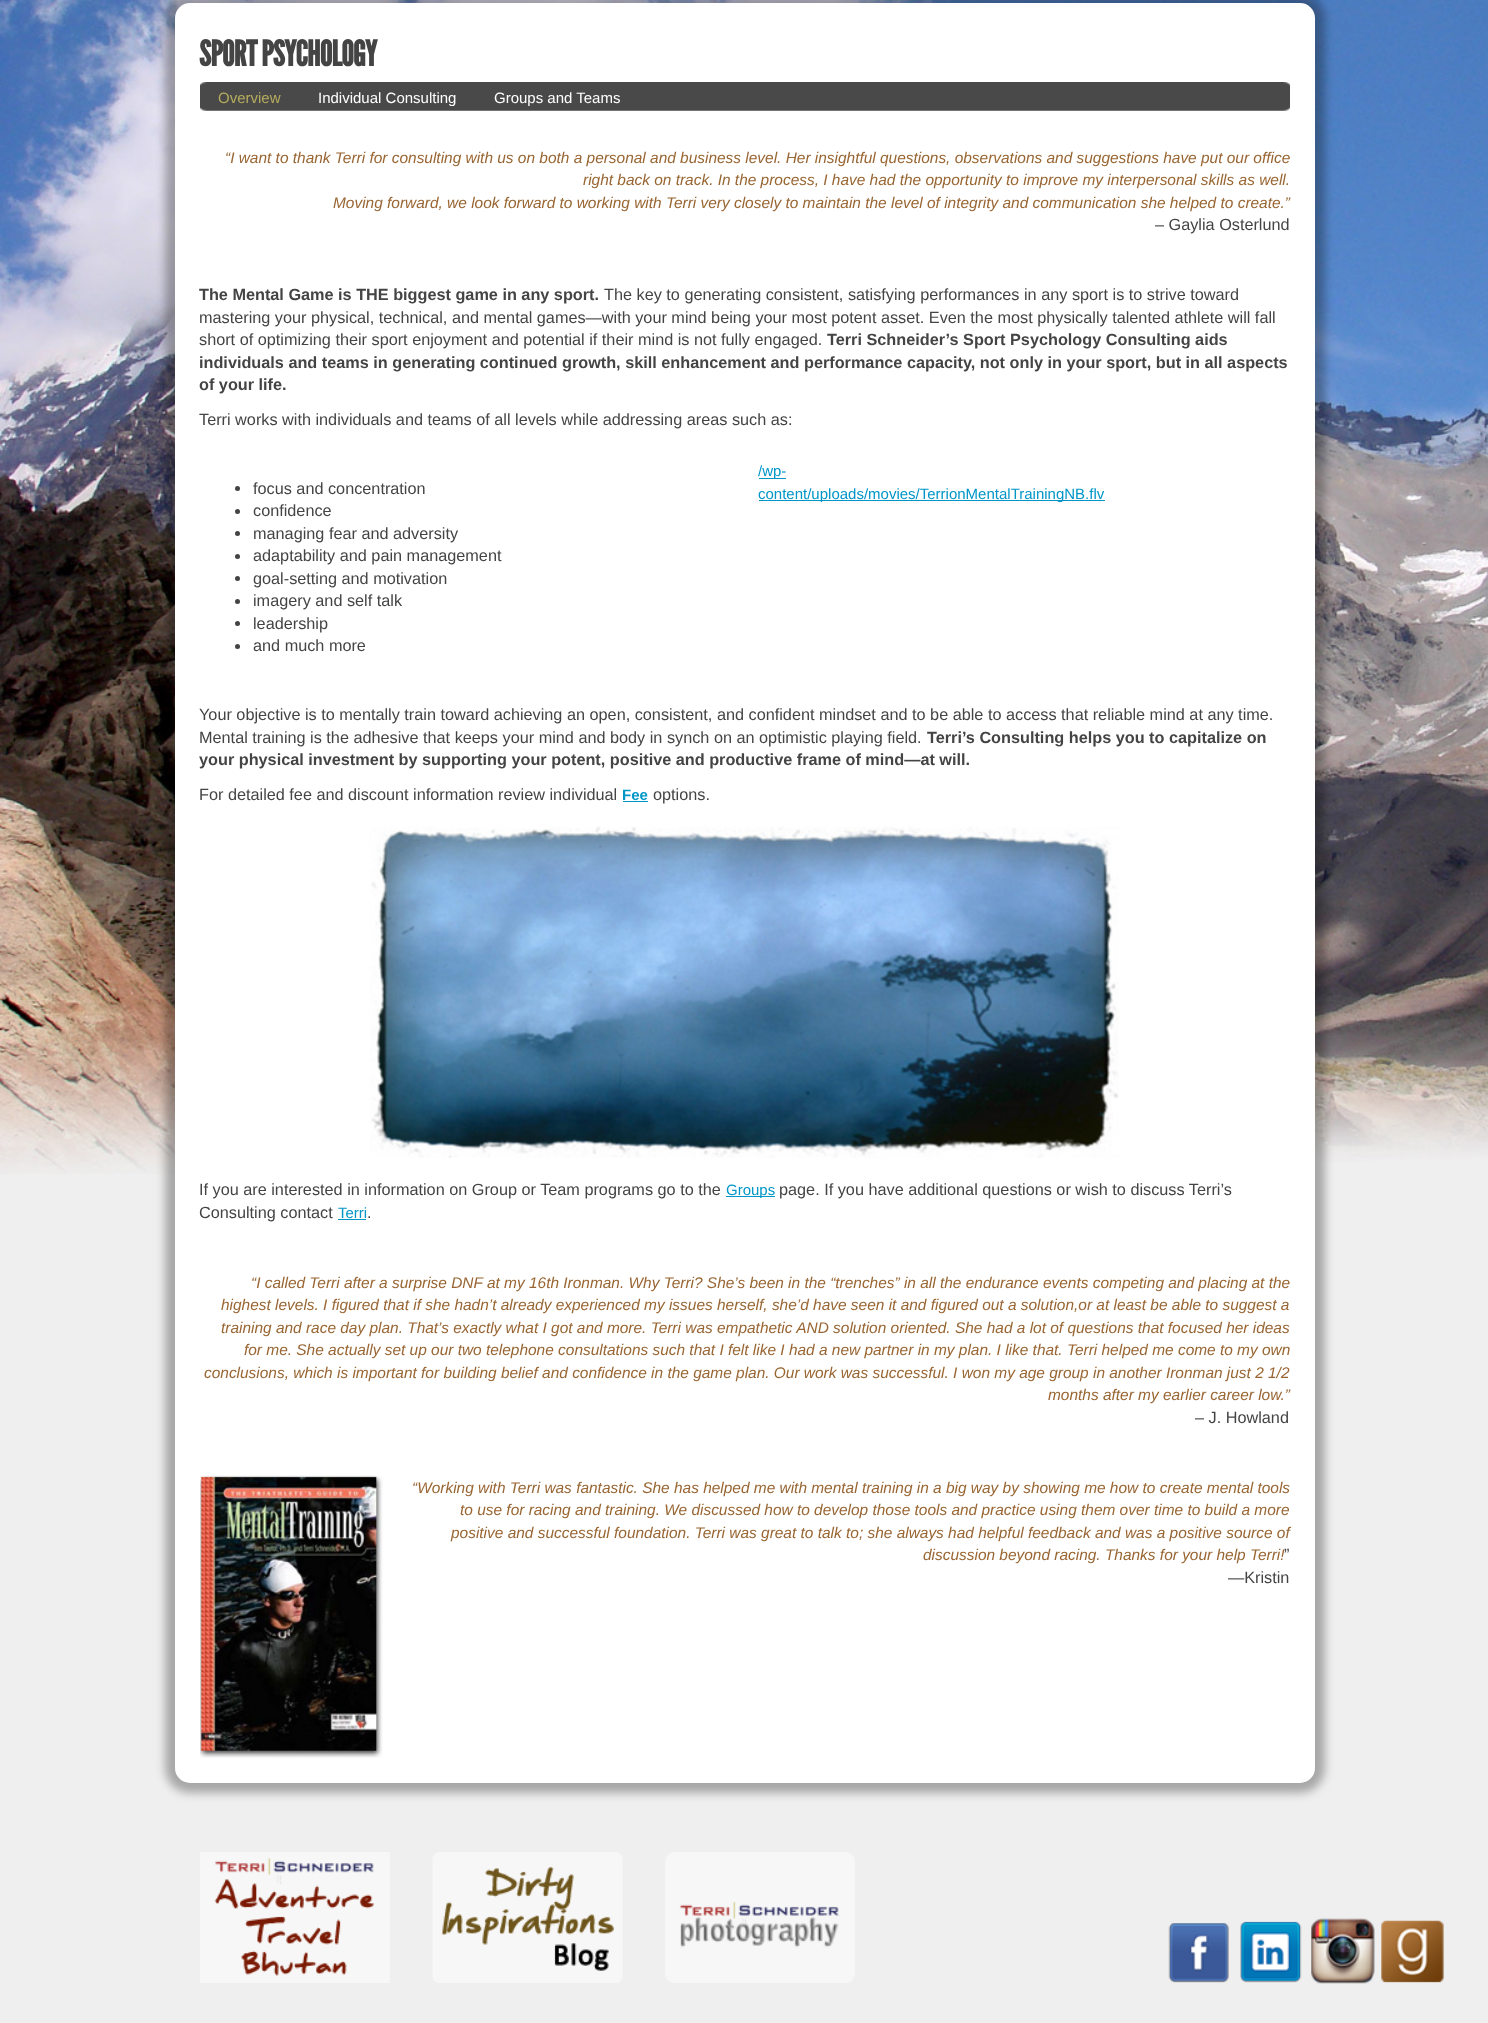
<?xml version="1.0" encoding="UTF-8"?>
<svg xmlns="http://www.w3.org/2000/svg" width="1488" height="2023">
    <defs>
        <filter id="blur1" x="-50%" y="-200%" width="200%" height="500%"><feGaussianBlur stdDeviation="5"/></filter>
    </defs>
    <rect width="100%" height="100%" fill="#EFEFEF"/>
    <image x="0" y="0" width="1488" height="1174" href="img_01.png"/>
    <rect x="165" y="-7" width="1160" height="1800" rx="25" fill="#000000" fill-opacity="0.3" filter="url(#blur1)"/>
    <rect x="175" y="3" width="1140" height="1780" rx="15" fill="#FFFFFF"/>
    <text x="199" y="66" font-family="League Gothic" font-size="35" font-weight="700" letter-spacing="-0.6" fill="#444444">SPORT PSYCHOLOGY</text>
    <image x="200" y="82" width="1090" height="29" href="img_02.png"/>
    <text x="218" y="103" font-family="Liberation Sans" font-size="15" fill="#B5AC5E">Overview</text>
    <text x="318" y="103" font-family="Liberation Sans" font-size="15" fill="#FFFFFF">Individual Consulting</text>
    <text x="494" y="103" font-family="Liberation Sans" font-size="15" fill="#FFFFFF">Groups and Teams</text>
    <text x="225" y="163" font-family="Liberation Sans" font-size="15.45" font-style="italic" fill="#996633">“I want to thank Terri for consulting with us on both a personal and business level. Her insightful questions, observations and suggestions have put our office</text>
    <text x="583" y="185" font-family="Liberation Sans" font-size="15.45" font-style="italic" fill="#996633">right back on track. In the process, I have had the opportunity to improve my interpersonal skills as well.</text>
    <text x="333" y="208" font-family="Liberation Sans" font-size="15.45" font-style="italic" fill="#996633">Moving forward, we look forward to working with Terri very closely to maintain the level of integrity and communication she helped to create.”</text>
    <text x="1155" y="230" font-family="Liberation Sans" font-size="16.25" fill="#444444">– Gaylia Osterlund</text>
    <text x="199" y="300" font-family="Liberation Sans" font-size="16.25" font-weight="700" fill="#444444">The Mental Game is THE biggest game in any sport.</text>
    <text x="604" y="300" font-family="Liberation Sans" font-size="16.25" fill="#444444">The key to generating consistent, satisfying performances in any sport is to strive toward</text>
    <text font-family="Liberation Sans" font-size="16.25" fill="#444444">
        <tspan x="199" y="323">mastering your physical, technical, and mental games—with your mind being your most potent asset. Even the most physically talented athlete will fall</tspan>
        <tspan x="199" y="345">short of optimizing their sport enjoyment and potential if their mind is not fully engaged.</tspan>
    </text>
    <text x="827" y="345" font-family="Liberation Sans" font-size="16.25" font-weight="700" fill="#444444">Terri Schneider’s Sport Psychology Consulting aids</text>
    <text font-family="Liberation Sans" font-size="16.25" font-weight="700" fill="#444444">
        <tspan x="199" y="368">individuals and teams in generating continued growth, skill enhancement and performance capacity, not only in your sport, but in all aspects</tspan>
        <tspan x="199" y="390">of your life.</tspan>
    </text>
    <text x="199" y="425" font-family="Liberation Sans" font-size="16.25" fill="#444444">Terri works with individuals and teams of all levels while addressing areas such as:</text>
    <circle cx="237.5" cy="488.5" r="2.5" fill="#444444"/>
    <text x="253" y="494" font-family="Liberation Sans" font-size="16.25" fill="#444444">focus and concentration</text>
    <circle cx="237.5" cy="511.5" r="2.5" fill="#444444"/>
    <text x="253" y="516" font-family="Liberation Sans" font-size="16.25" fill="#444444">confidence</text>
    <circle cx="237.5" cy="533.5" r="2.5" fill="#444444"/>
    <text x="253" y="539" font-family="Liberation Sans" font-size="16.25" fill="#444444">managing fear and adversity</text>
    <circle cx="237.5" cy="556.5" r="2.5" fill="#444444"/>
    <text x="253" y="561" font-family="Liberation Sans" font-size="16.25" fill="#444444">adaptability and pain management</text>
    <circle cx="237.5" cy="578.5" r="2.5" fill="#444444"/>
    <text x="253" y="584" font-family="Liberation Sans" font-size="16.25" fill="#444444">goal-setting and motivation</text>
    <circle cx="237.5" cy="601.5" r="2.5" fill="#444444"/>
    <text x="253" y="606" font-family="Liberation Sans" font-size="16.25" fill="#444444">imagery and self talk</text>
    <circle cx="237.5" cy="623.5" r="2.5" fill="#444444"/>
    <text x="253" y="629" font-family="Liberation Sans" font-size="16.25" fill="#444444">leadership</text>
    <circle cx="237.5" cy="646.5" r="2.5" fill="#444444"/>
    <text x="253" y="651" font-family="Liberation Sans" font-size="16.25" fill="#444444">and much more</text>
    <rect x="759" y="478" width="27" height="1" fill="#0096C8"/>
    <text x="758" y="476" font-family="Liberation Sans" font-size="15" fill="#0096C8">/wp-</text>
    <rect x="759" y="500" width="346" height="1" fill="#0096C8"/>
    <text x="758" y="499" font-family="Liberation Sans" font-size="15" fill="#0096C8">content/uploads/movies/TerrionMentalTrainingNB.flv</text>
    <text font-family="Liberation Sans" font-size="16.25" fill="#444444">
        <tspan x="199" y="720">Your objective is to mentally train toward achieving an open, consistent, and confident mindset and to be able to access that reliable mind at any time.</tspan>
        <tspan x="199" y="743">Mental training is the adhesive that keeps your mind and body in synch on an optimistic playing field.</tspan>
    </text>
    <text x="927" y="743" font-family="Liberation Sans" font-size="16.25" font-weight="700" fill="#444444">Terri’s Consulting helps you to capitalize on</text>
    <text x="199" y="765" font-family="Liberation Sans" font-size="16.25" font-weight="700" fill="#444444">your physical investment by supporting your potent, positive and productive frame of mind—at will.</text>
    <text x="199" y="800" font-family="Liberation Sans" font-size="16.25" fill="#444444">For detailed fee and discount information review individual</text>
    <text x="622" y="800" font-family="Liberation Sans" font-size="15" font-weight="700" fill="#0096C8">Fee</text>
    <rect x="623" y="801" width="25" height="1" fill="#0096C8"/>
    <text x="653" y="800" font-family="Liberation Sans" font-size="16.25" fill="#444444">options.</text>
    <image x="370" y="826" width="749" height="332" href="img_03.png"/>
    <text x="199" y="1195" font-family="Liberation Sans" font-size="16.25" fill="#444444">If you are interested in information on Group or Team programs go to the</text>
    <rect x="726" y="1196" width="49" height="1" fill="#0096C8"/>
    <text x="726" y="1195" font-family="Liberation Sans" font-size="15" fill="#0096C8">Groups</text>
    <text x="779" y="1195" font-family="Liberation Sans" font-size="16.25" fill="#444444">page. If you have additional questions or wish to discuss Terri’s</text>
    <text x="199" y="1218" font-family="Liberation Sans" font-size="16.25" fill="#444444">Consulting contact</text>
    <text x="338" y="1218" font-family="Liberation Sans" font-size="15" fill="#0096C8">Terri</text>
    <rect x="338" y="1219" width="28" height="1" fill="#0096C8"/>
    <text x="367" y="1218" font-family="Liberation Sans" font-size="16.25" fill="#444444">.</text>
    <text x="251" y="1288" font-family="Liberation Sans" font-size="15.45" font-style="italic" fill="#996633">“I called Terri after a surprise DNF at my 16th Ironman. Why Terri? She’s been in the “trenches” in all the endurance events competing and placing at the</text>
    <text font-family="Liberation Sans" font-size="15.45" font-style="italic" fill="#996633">
        <tspan x="221" y="1310">highest levels. I figured that if she hadn’t already experienced my issues herself, she’d have seen it and figured out a solution,or at least be able to suggest a</tspan>
        <tspan x="221" y="1333">training and race day plan. That’s exactly what I got and more. Terri was empathetic AND solution oriented. She had a lot of questions that focused her ideas</tspan>
    </text>
    <text x="244" y="1355" font-family="Liberation Sans" font-size="15.45" font-style="italic" fill="#996633">for me. She actually set up our two telephone consultations such that I felt like I had a new partner in my plan. I like that. Terri helped me come to my own</text>
    <text x="204" y="1378" font-family="Liberation Sans" font-size="15.45" font-style="italic" fill="#996633">conclusions, which is important for building belief and confidence in the game plan. Our work was successful. I won my age group in another Ironman just 2 1/2</text>
    <text x="1048" y="1400" font-family="Liberation Sans" font-size="15.45" font-style="italic" fill="#996633">months after my earlier career low.”</text>
    <text x="1195" y="1423" font-family="Liberation Sans" font-size="16.25" fill="#444444">– J. Howland</text>
    <image x="200" y="1475" width="183" height="283" href="img_04.png"/>
    <text x="412" y="1493" font-family="Liberation Sans" font-size="15.45" font-style="italic" fill="#996633">“Working with Terri was fantastic. She has helped me with mental training in a big way by showing me how to create mental tools</text>
    <text x="460" y="1515" font-family="Liberation Sans" font-size="15.45" font-style="italic" fill="#996633">to use for racing and training. We discussed how to develop those tools and practice using them over time to build a more</text>
    <text x="451" y="1538" font-family="Liberation Sans" font-size="15.45" font-style="italic" fill="#996633">positive and successful foundation. Terri was great to talk to; she always had helpful feedback and was a positive source of</text>
    <text x="923" y="1560" font-family="Liberation Sans" font-size="15.45" font-style="italic" fill="#996633">discussion beyond racing. Thanks for your help Terri!</text>
    <text x="1284" y="1560" font-family="Liberation Sans" font-size="16.25" fill="#444444">”</text>
    <text x="1228" y="1583" font-family="Liberation Sans" font-size="16.25" fill="#444444">—Kristin</text>
    <image x="200" y="1852" width="190" height="131" href="img_05.png"/>
    <image x="432" y="1852" width="191" height="131" href="img_06.png"/>
    <image x="665" y="1852" width="190" height="131" href="img_07.png"/>
    <image x="1168" y="1923" width="61" height="60" href="img_08.png"/>
    <image x="1240" y="1921" width="62" height="62" href="img_09.png"/>
    <image x="1311" y="1918" width="64" height="66" href="img_10.png"/>
    <image x="1381" y="1920" width="63" height="63" href="img_11.png"/>
</svg>
